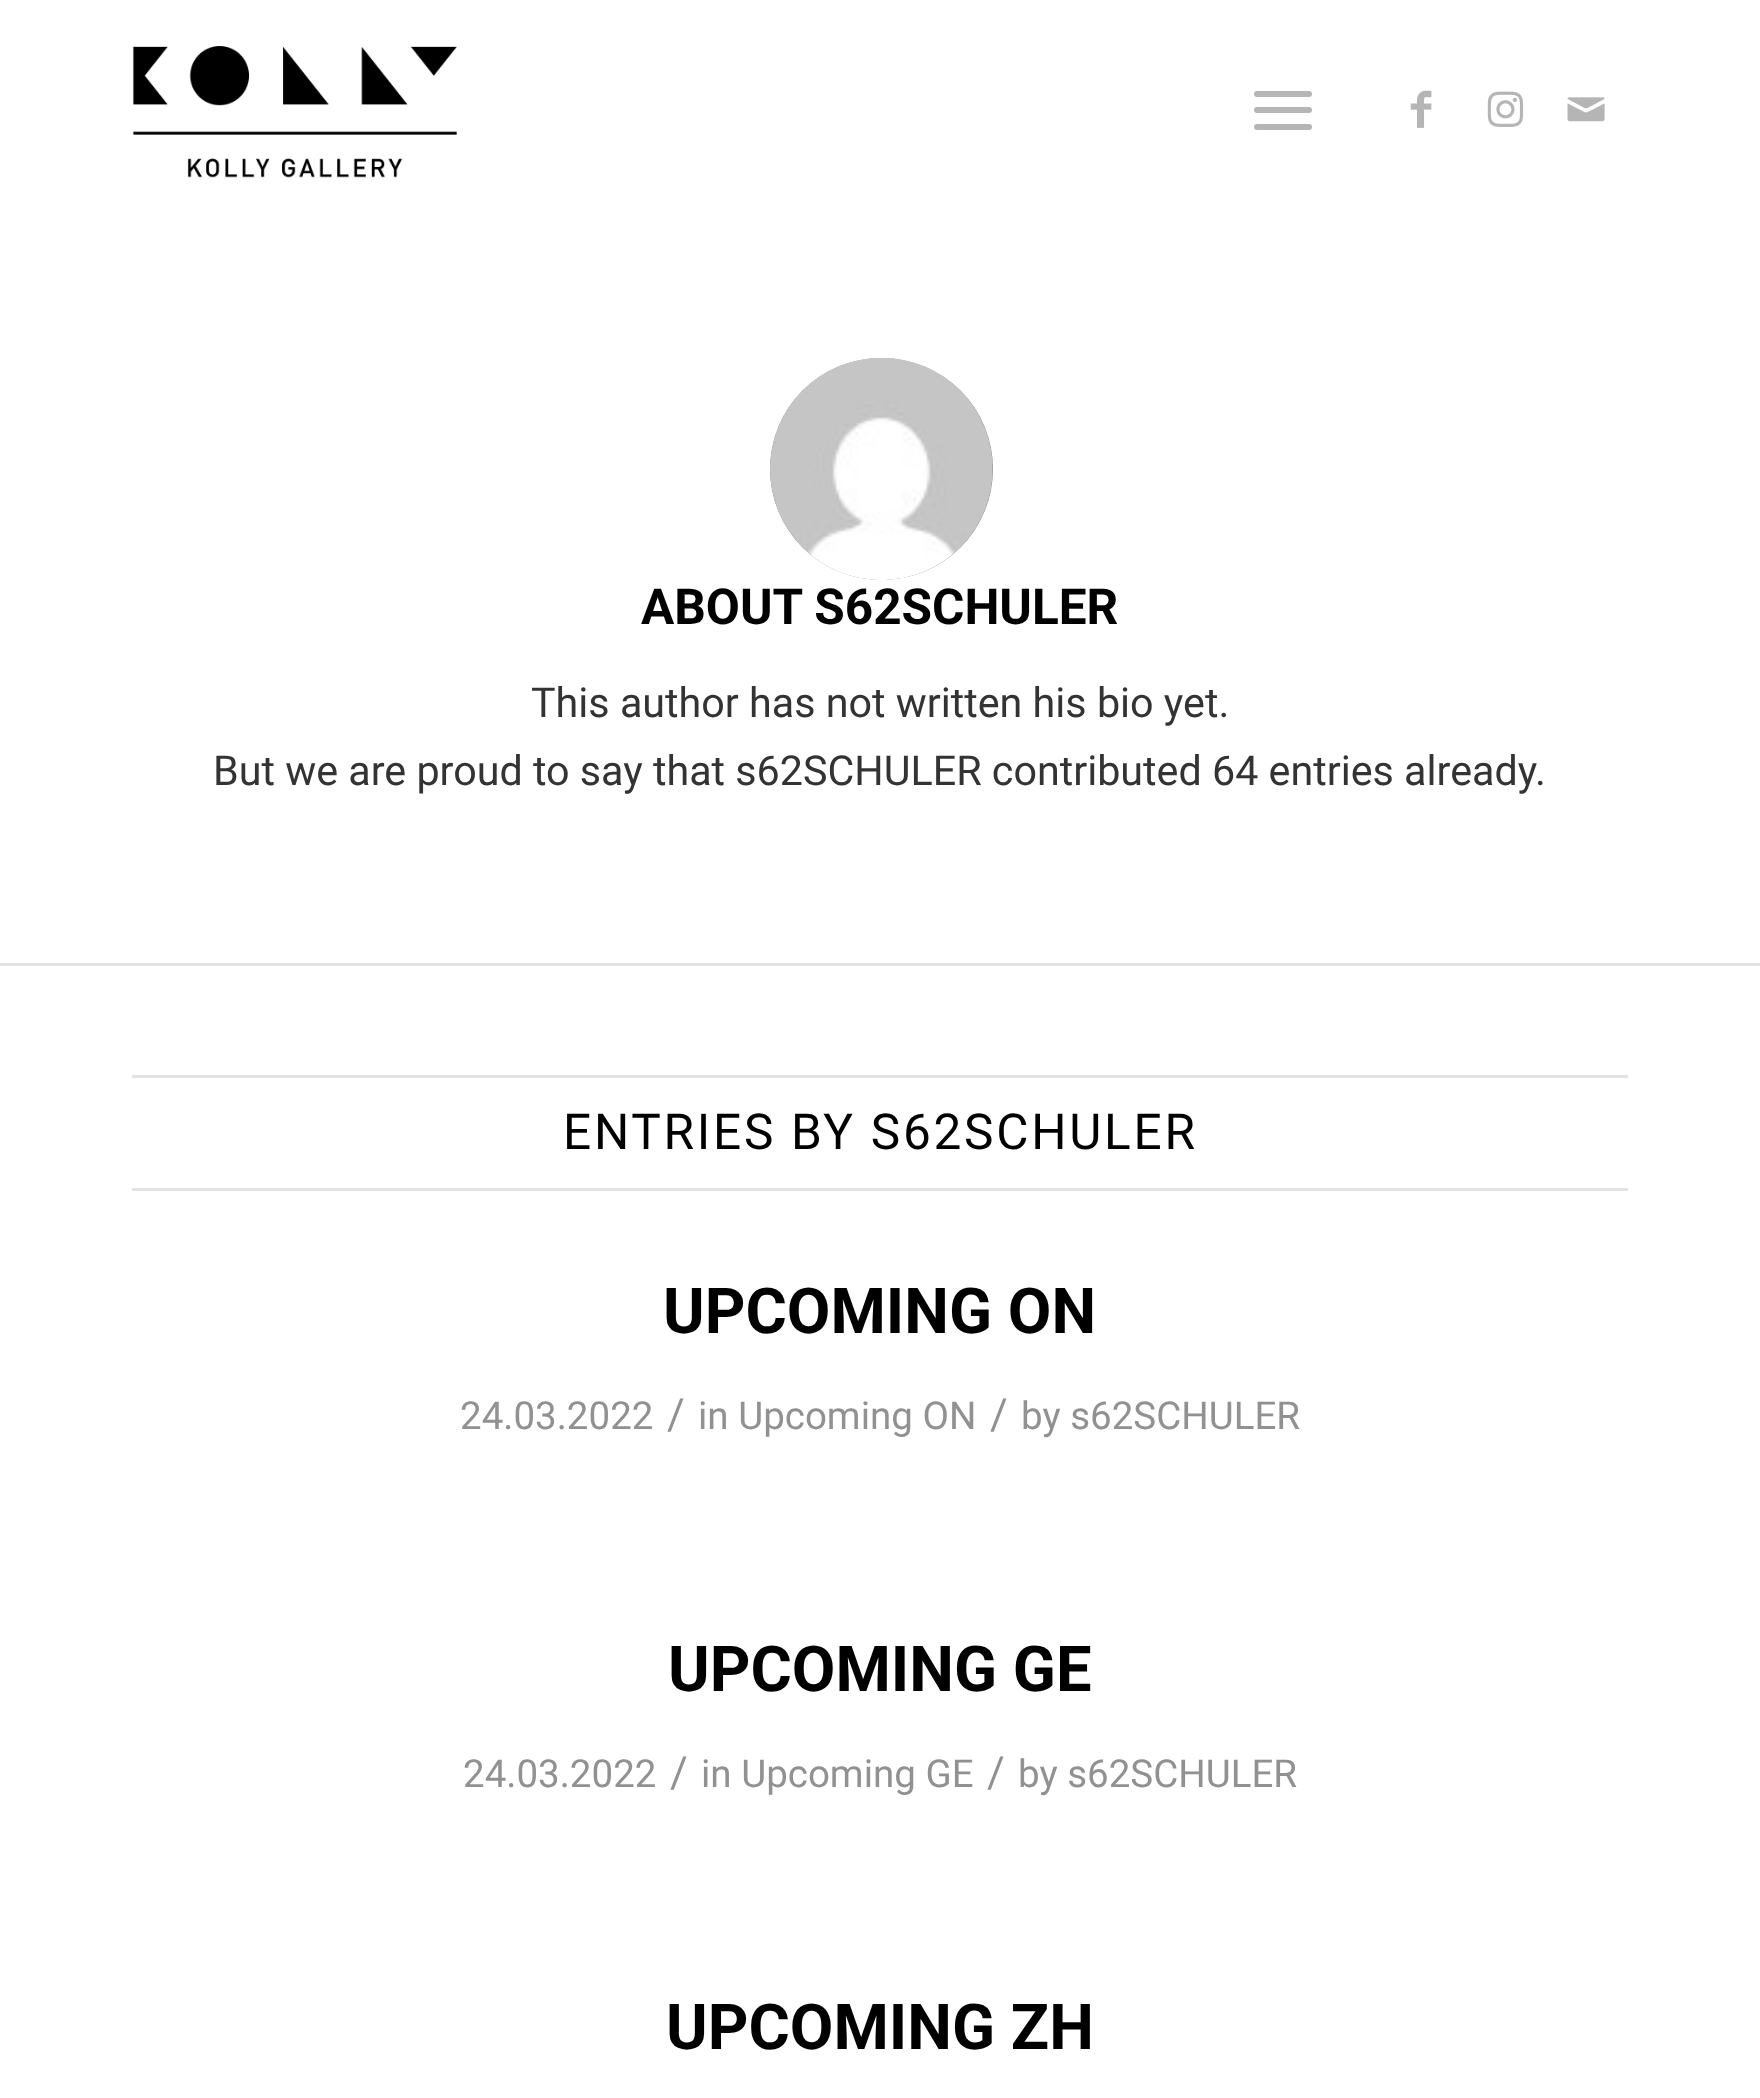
<?xml version="1.0" encoding="UTF-8"?>
<svg xmlns="http://www.w3.org/2000/svg" width="1760" height="2098">
    <rect width="100%" height="100%" fill="#FFFFFF"/>
    <image x="132" y="46" width="325" height="132" href="img_01.png"/>
    <rect x="1254" y="107" width="58" height="6" rx="3" fill="#B5B5B5"/>
    <rect x="1254" y="91" width="58" height="6" rx="3" fill="#B5B5B5"/>
    <rect x="1254" y="124" width="58" height="6" rx="3" fill="#B5B5B5"/>
    <image x="1410" y="90" width="22" height="38" href="img_02.png"/>
    <image x="1487" y="91" width="37" height="36" href="img_03.png"/>
    <image x="1567" y="97" width="38" height="25" href="img_04.png"/>
    <rect x="770" y="358" width="223" height="222" rx="111" fill="#919191"/>
    <image x="770" y="357" width="223" height="223" href="img_05.png"/>
    <text x="641" y="624" font-family="Roboto" font-size="49.5" font-weight="700" fill="#000000">ABOUT S62SCHULER</text>
    <text x="531" y="717" font-family="Roboto" font-size="41.25" fill="#333333">This author has not written his bio yet.</text>
    <text x="213" y="785" font-family="Roboto" font-size="41.25" fill="#333333">But we are proud to say that s62SCHULER contributed 64 entries already.</text>
    <rect x="0" y="963" width="1760" height="3" fill="#E3E3E3"/>
    <rect x="132" y="1075" width="1496" height="3" fill="#E3E3E3"/>
    <rect x="132" y="1188" width="1496" height="3" fill="#E3E3E3"/>
    <text x="563" y="1149" font-family="Roboto" font-size="49.5" letter-spacing="2.75" fill="#000000">ENTRIES BY S62SCHULER</text>
    <text x="663" y="1333" font-family="Roboto" font-size="63.25" font-weight="700" fill="#000000">UPCOMING ON</text>
    <text x="460" y="1429" font-family="Roboto" font-size="38.5" fill="#919191">24.03.2022</text>
    <text x="667" y="1429" font-family="Roboto" font-size="43" fill="#919191">/</text>
    <text x="698" y="1429" font-family="Roboto" font-size="38.5" fill="#919191">in Upcoming ON</text>
    <text x="990" y="1429" font-family="Roboto" font-size="43" fill="#919191">/</text>
    <text x="1021" y="1429" font-family="Roboto" font-size="38.5" fill="#919191">by s62SCHULER</text>
    <text x="668" y="1691" font-family="Roboto" font-size="63.25" font-weight="700" fill="#000000">UPCOMING GE</text>
    <text x="463" y="1787" font-family="Roboto" font-size="38.5" fill="#919191">24.03.2022</text>
    <text x="670" y="1787" font-family="Roboto" font-size="43" fill="#919191">/</text>
    <text x="701" y="1787" font-family="Roboto" font-size="38.5" fill="#919191">in Upcoming GE</text>
    <text x="987" y="1787" font-family="Roboto" font-size="43" fill="#919191">/</text>
    <text x="1018" y="1787" font-family="Roboto" font-size="38.5" fill="#919191">by s62SCHULER</text>
    <text x="666" y="2049" font-family="Roboto" font-size="63.25" font-weight="700" fill="#000000">UPCOMING ZH</text>
</svg>
